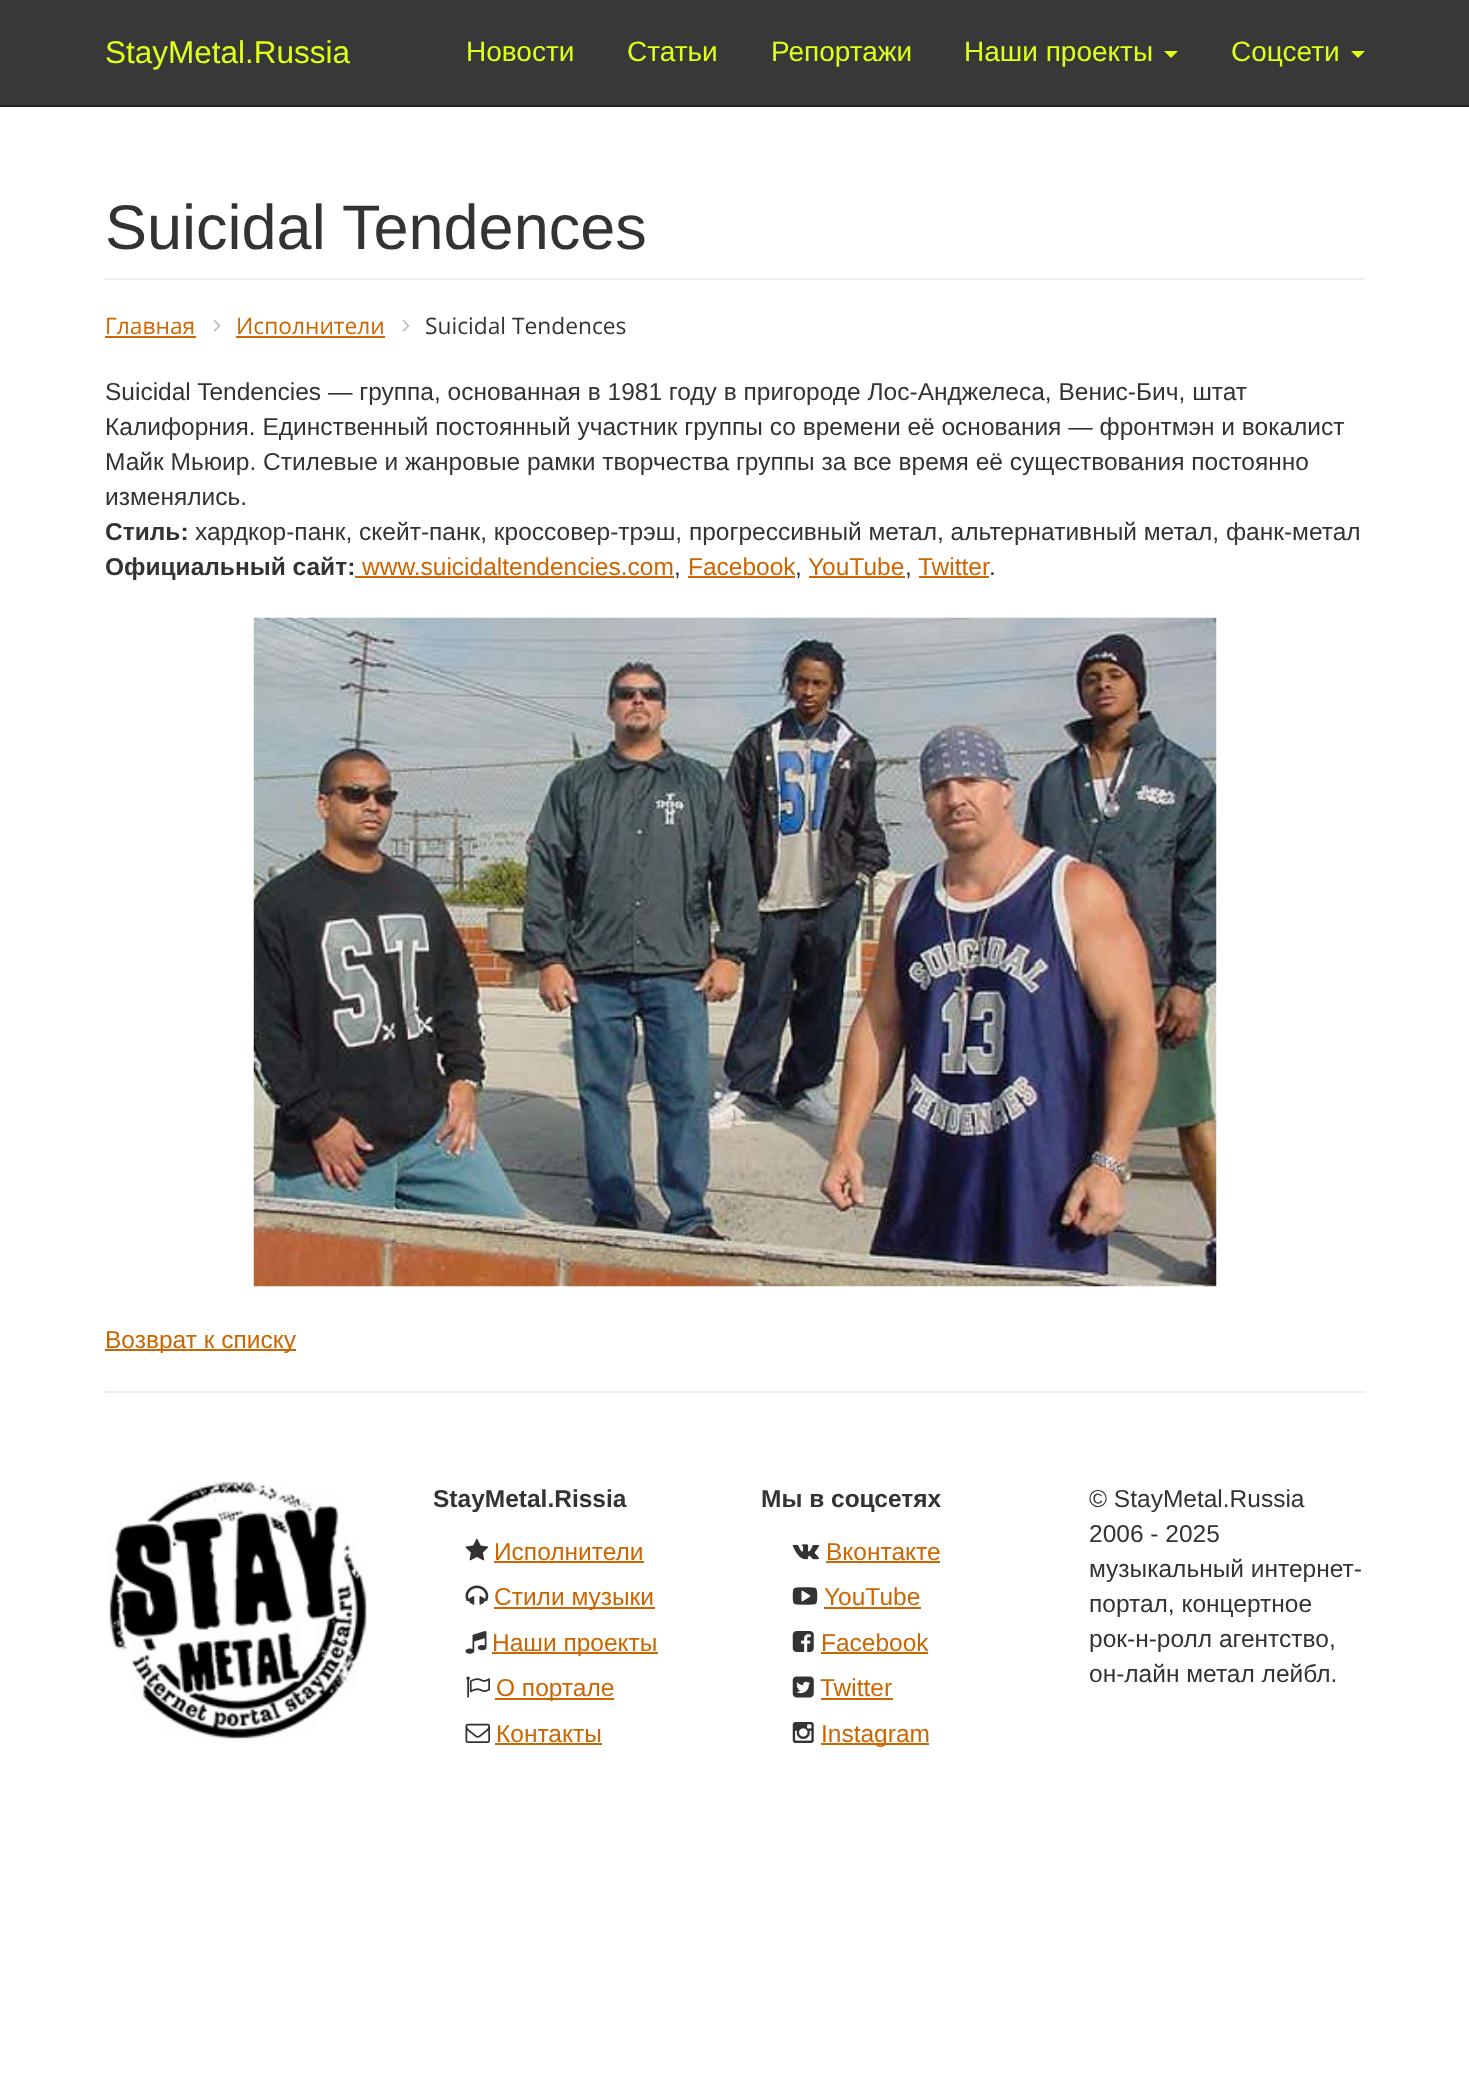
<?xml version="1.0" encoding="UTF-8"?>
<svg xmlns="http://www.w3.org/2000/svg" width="1469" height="2075">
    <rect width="100%" height="100%" fill="#FFFFFF"/>
    <rect x="0" y="0" width="1469" height="105" fill="#383838"/>
    <rect x="0" y="105" width="1469" height="2" fill="#212121"/>
    <text x="105" y="63" font-family="Liberation Sans" font-size="31.5" fill="#E1FF1A">StayMetal.Russia</text>
    <text x="466" y="61" font-family="Liberation Sans" font-size="28" fill="#E1FF1A">Новости</text>
    <text x="627" y="61" font-family="Liberation Sans" font-size="28" fill="#E1FF1A">Статьи</text>
    <text x="771" y="61" font-family="Liberation Sans" font-size="28" fill="#E1FF1A">Репортажи</text>
    <text x="964" y="61" font-family="Liberation Sans" font-size="28" fill="#E1FF1A">Наши проекты</text>
    <path d="M 1164 51 H 1178 L 1171 58 Z" fill="#E1FF1A"/>
    <text x="1231" y="61" font-family="Liberation Sans" font-size="28" fill="#E1FF1A">Соцсети</text>
    <path d="M 1351 51 H 1365 L 1358 58 Z" fill="#E1FF1A"/>
    <rect x="105" y="278" width="1260" height="2" fill="#EEEEEE"/>
    <text x="105" y="249" font-family="Liberation Sans" font-size="63" fill="#333333">Suicidal Tendences</text>
    <text x="105" y="334" font-family="Open Sans" font-size="22.75" fill="#CC6600">Главная</text>
    <rect x="105" y="336" width="91" height="2" fill="#CC6600"/>
    <image x="213" y="320" width="8" height="12" href="img_01.png"/>
    <text x="236" y="334" font-family="Open Sans" font-size="22.75" fill="#CC6600">Исполнители</text>
    <rect x="236" y="336" width="149" height="2" fill="#CC6600"/>
    <image x="402" y="320" width="8" height="12" href="img_01.png"/>
    <text x="425" y="334" font-family="Open Sans" font-size="22.75" fill="#333333">Suicidal Tendences</text>
    <text font-family="Liberation Sans" font-size="24.5" fill="#333333">
        <tspan x="105" y="400">Suicidal Tendencies — группа, основанная в 1981 году в пригороде Лос-Анджелеса, Венис-Бич, штат</tspan>
        <tspan x="105" y="435">Калифорния. Единственный постоянный участник группы со времени её основания — фронтмэн и вокалист</tspan>
        <tspan x="105" y="470">Майк Мьюир. Стилевые и жанровые рамки творчества группы за все время её существования постоянно</tspan>
        <tspan x="105" y="505">изменялись.</tspan>
    </text>
    <text x="105" y="540" font-family="Liberation Sans" font-size="24.5" font-weight="700" fill="#333333">Стиль:</text>
    <text x="195" y="540" font-family="Liberation Sans" font-size="24.5" fill="#333333">хардкор-панк, скейт-панк, кроссовер-трэш, прогрессивный метал, альтернативный метал, фанк-метал</text>
    <text x="105" y="575" font-family="Liberation Sans" font-size="24.5" font-weight="700" fill="#333333">Официальный сайт:</text>
    <rect x="355" y="576" width="319" height="2" fill="#CC6600"/>
    <text x="362" y="575" font-family="Liberation Sans" font-size="24.5" fill="#CC6600">www.suicidaltendencies.com</text>
    <text x="674" y="575" font-family="Liberation Sans" font-size="24.5" fill="#333333">,</text>
    <text x="688" y="575" font-family="Liberation Sans" font-size="24.5" fill="#CC6600">Facebook</text>
    <rect x="688" y="576" width="107" height="2" fill="#CC6600"/>
    <text x="795" y="575" font-family="Liberation Sans" font-size="24.5" fill="#333333">,</text>
    <text x="808" y="575" font-family="Liberation Sans" font-size="24.5" fill="#CC6600">YouTube</text>
    <rect x="809" y="576" width="96" height="2" fill="#CC6600"/>
    <text x="905" y="575" font-family="Liberation Sans" font-size="24.5" fill="#333333">,</text>
    <text x="918" y="575" font-family="Liberation Sans" font-size="24.5" fill="#CC6600">Twitter</text>
    <rect x="919" y="576" width="70" height="2" fill="#CC6600"/>
    <text x="989" y="575" font-family="Liberation Sans" font-size="24.5" fill="#333333">.</text>
    <image x="253" y="617" width="964" height="670" href="img_02.png"/>
    <rect x="105" y="1349" width="191" height="2" fill="#CC6600"/>
    <text x="105" y="1348" font-family="Liberation Sans" font-size="24.5" fill="#CC6600">Возврат к списку</text>
    <rect x="105" y="1391" width="1260" height="2" fill="#EEEEEE"/>
    <image x="107" y="1481" width="260" height="262" href="img_03.png"/>
    <text x="433" y="1507" font-family="Liberation Sans" font-size="24.5" font-weight="700" fill="#333333">StayMetal.Rissia</text>
    <image x="465" y="1538" width="24" height="23" href="img_04.png"/>
    <text x="494" y="1560" font-family="Liberation Sans" font-size="24.5" fill="#CC6600">Исполнители</text>
    <rect x="494" y="1561" width="150" height="2" fill="#CC6600"/>
    <image x="465" y="1585" width="24" height="20" href="img_05.png"/>
    <rect x="494" y="1607" width="161" height="2" fill="#CC6600"/>
    <text x="494" y="1605" font-family="Liberation Sans" font-size="24.5" fill="#CC6600">Стили музыки</text>
    <image x="465" y="1631" width="22" height="23" href="img_06.png"/>
    <rect x="492" y="1652" width="166" height="2" fill="#CC6600"/>
    <text x="492" y="1651" font-family="Liberation Sans" font-size="24.5" fill="#CC6600">Наши проекты</text>
    <image x="466" y="1676" width="24" height="22" href="img_07.png"/>
    <rect x="495" y="1698" width="119" height="2" fill="#CC6600"/>
    <text x="496" y="1696" font-family="Liberation Sans" font-size="24.5" fill="#CC6600">О портале</text>
    <image x="465" y="1723" width="25" height="20" href="img_08.png"/>
    <text x="496" y="1742" font-family="Liberation Sans" font-size="24.5" fill="#CC6600">Контакты</text>
    <rect x="495" y="1743" width="107" height="2" fill="#CC6600"/>
    <text x="761" y="1507" font-family="Liberation Sans" font-size="24.5" font-weight="700" fill="#333333">Мы в соцсетях</text>
    <image x="792" y="1544" width="27" height="16" href="img_09.png"/>
    <text x="826" y="1560" font-family="Liberation Sans" font-size="24.5" fill="#CC6600">Вконтакте</text>
    <rect x="826" y="1561" width="114" height="2" fill="#CC6600"/>
    <image x="792" y="1587" width="26" height="18" href="img_10.png"/>
    <text x="824" y="1605" font-family="Liberation Sans" font-size="24.5" fill="#CC6600">YouTube</text>
    <rect x="824" y="1607" width="97" height="2" fill="#CC6600"/>
    <image x="792" y="1631" width="22" height="21" href="img_11.png"/>
    <text x="821" y="1651" font-family="Liberation Sans" font-size="24.5" fill="#CC6600">Facebook</text>
    <rect x="821" y="1652" width="107" height="2" fill="#CC6600"/>
    <image x="792" y="1676" width="22" height="22" href="img_12.png"/>
    <text x="820" y="1696" font-family="Liberation Sans" font-size="24.5" fill="#CC6600">Twitter</text>
    <rect x="821" y="1698" width="72" height="2" fill="#CC6600"/>
    <image x="792" y="1722" width="22" height="21" href="img_13.png"/>
    <rect x="821" y="1743" width="108" height="2" fill="#CC6600"/>
    <text x="821" y="1742" font-family="Liberation Sans" font-size="24.5" fill="#CC6600">Instagram</text>
    <text font-family="Liberation Sans" font-size="24.5" fill="#333333">
        <tspan x="1089" y="1507">© StayMetal.Russia</tspan>
        <tspan x="1089" y="1542">2006 - 2025</tspan>
        <tspan x="1089" y="1577">музыкальный интернет-</tspan>
        <tspan x="1089" y="1612">портал, концертное</tspan>
        <tspan x="1089" y="1647">рок-н-ролл агентство,</tspan>
        <tspan x="1089" y="1682">он-лайн метал лейбл.</tspan>
    </text>
</svg>
